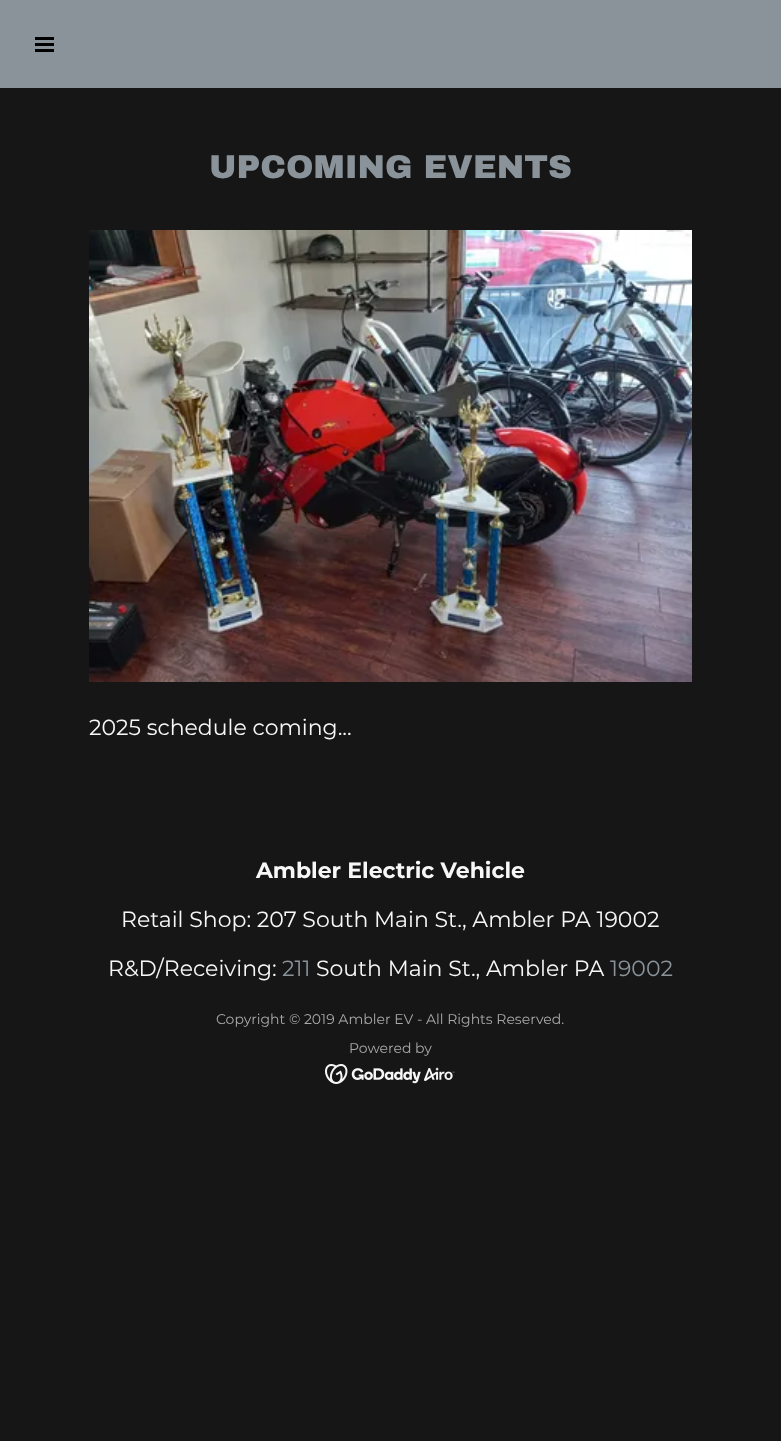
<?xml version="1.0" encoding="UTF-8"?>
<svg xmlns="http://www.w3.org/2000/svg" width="781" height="1441">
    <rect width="100%" height="100%" fill="#161616"/>
    <rect x="0" y="0" width="781" height="88" fill="#8A9399"/>
    <rect x="35" y="37" width="19" height="3" fill="#000000"/>
    <rect x="35" y="43" width="19" height="3" fill="#000000"/>
    <rect x="35" y="49" width="19" height="3" fill="#000000"/>
    <text x="209" y="178" font-family="Archivo Black" font-size="33" font-weight="900" fill="#8A9399">UPCOMING EVENTS</text>
    <image x="89" y="230" width="603" height="452" href="img_01.png"/>
    <text x="89" y="735" font-family="Montserrat" font-size="22" fill="#F7F7F7">2025 schedule coming...</text>
    <text x="256" y="878" font-family="Montserrat" font-size="22" font-weight="700" fill="#F7F7F7">Ambler Electric Vehicle</text>
    <text x="121" y="927" font-family="Montserrat" font-size="22" fill="#F7F7F7">Retail Shop: 207 South Main St., Ambler PA 19002</text>
    <text x="108" y="976" font-family="Montserrat" font-size="22" fill="#F7F7F7">R&amp;D/Receiving:</text>
    <text x="282" y="976" font-family="Montserrat" font-size="22" fill="#8A9399">211</text>
    <text x="316" y="976" font-family="Montserrat" font-size="22" fill="#F7F7F7">South Main St., Ambler PA</text>
    <text x="610" y="976" font-family="Montserrat" font-size="22" fill="#8A9399">19002</text>
    <text x="216" y="1024" font-family="Montserrat" font-size="14" fill="#A9A9A9">Copyright © 2019 Ambler EV - All Rights Reserved.</text>
    <text x="349" y="1053" font-family="Montserrat" font-size="14" fill="#A9A9A9">Powered by</text>
    <image x="325" y="1064" width="130" height="20" href="img_02.png"/>
</svg>
